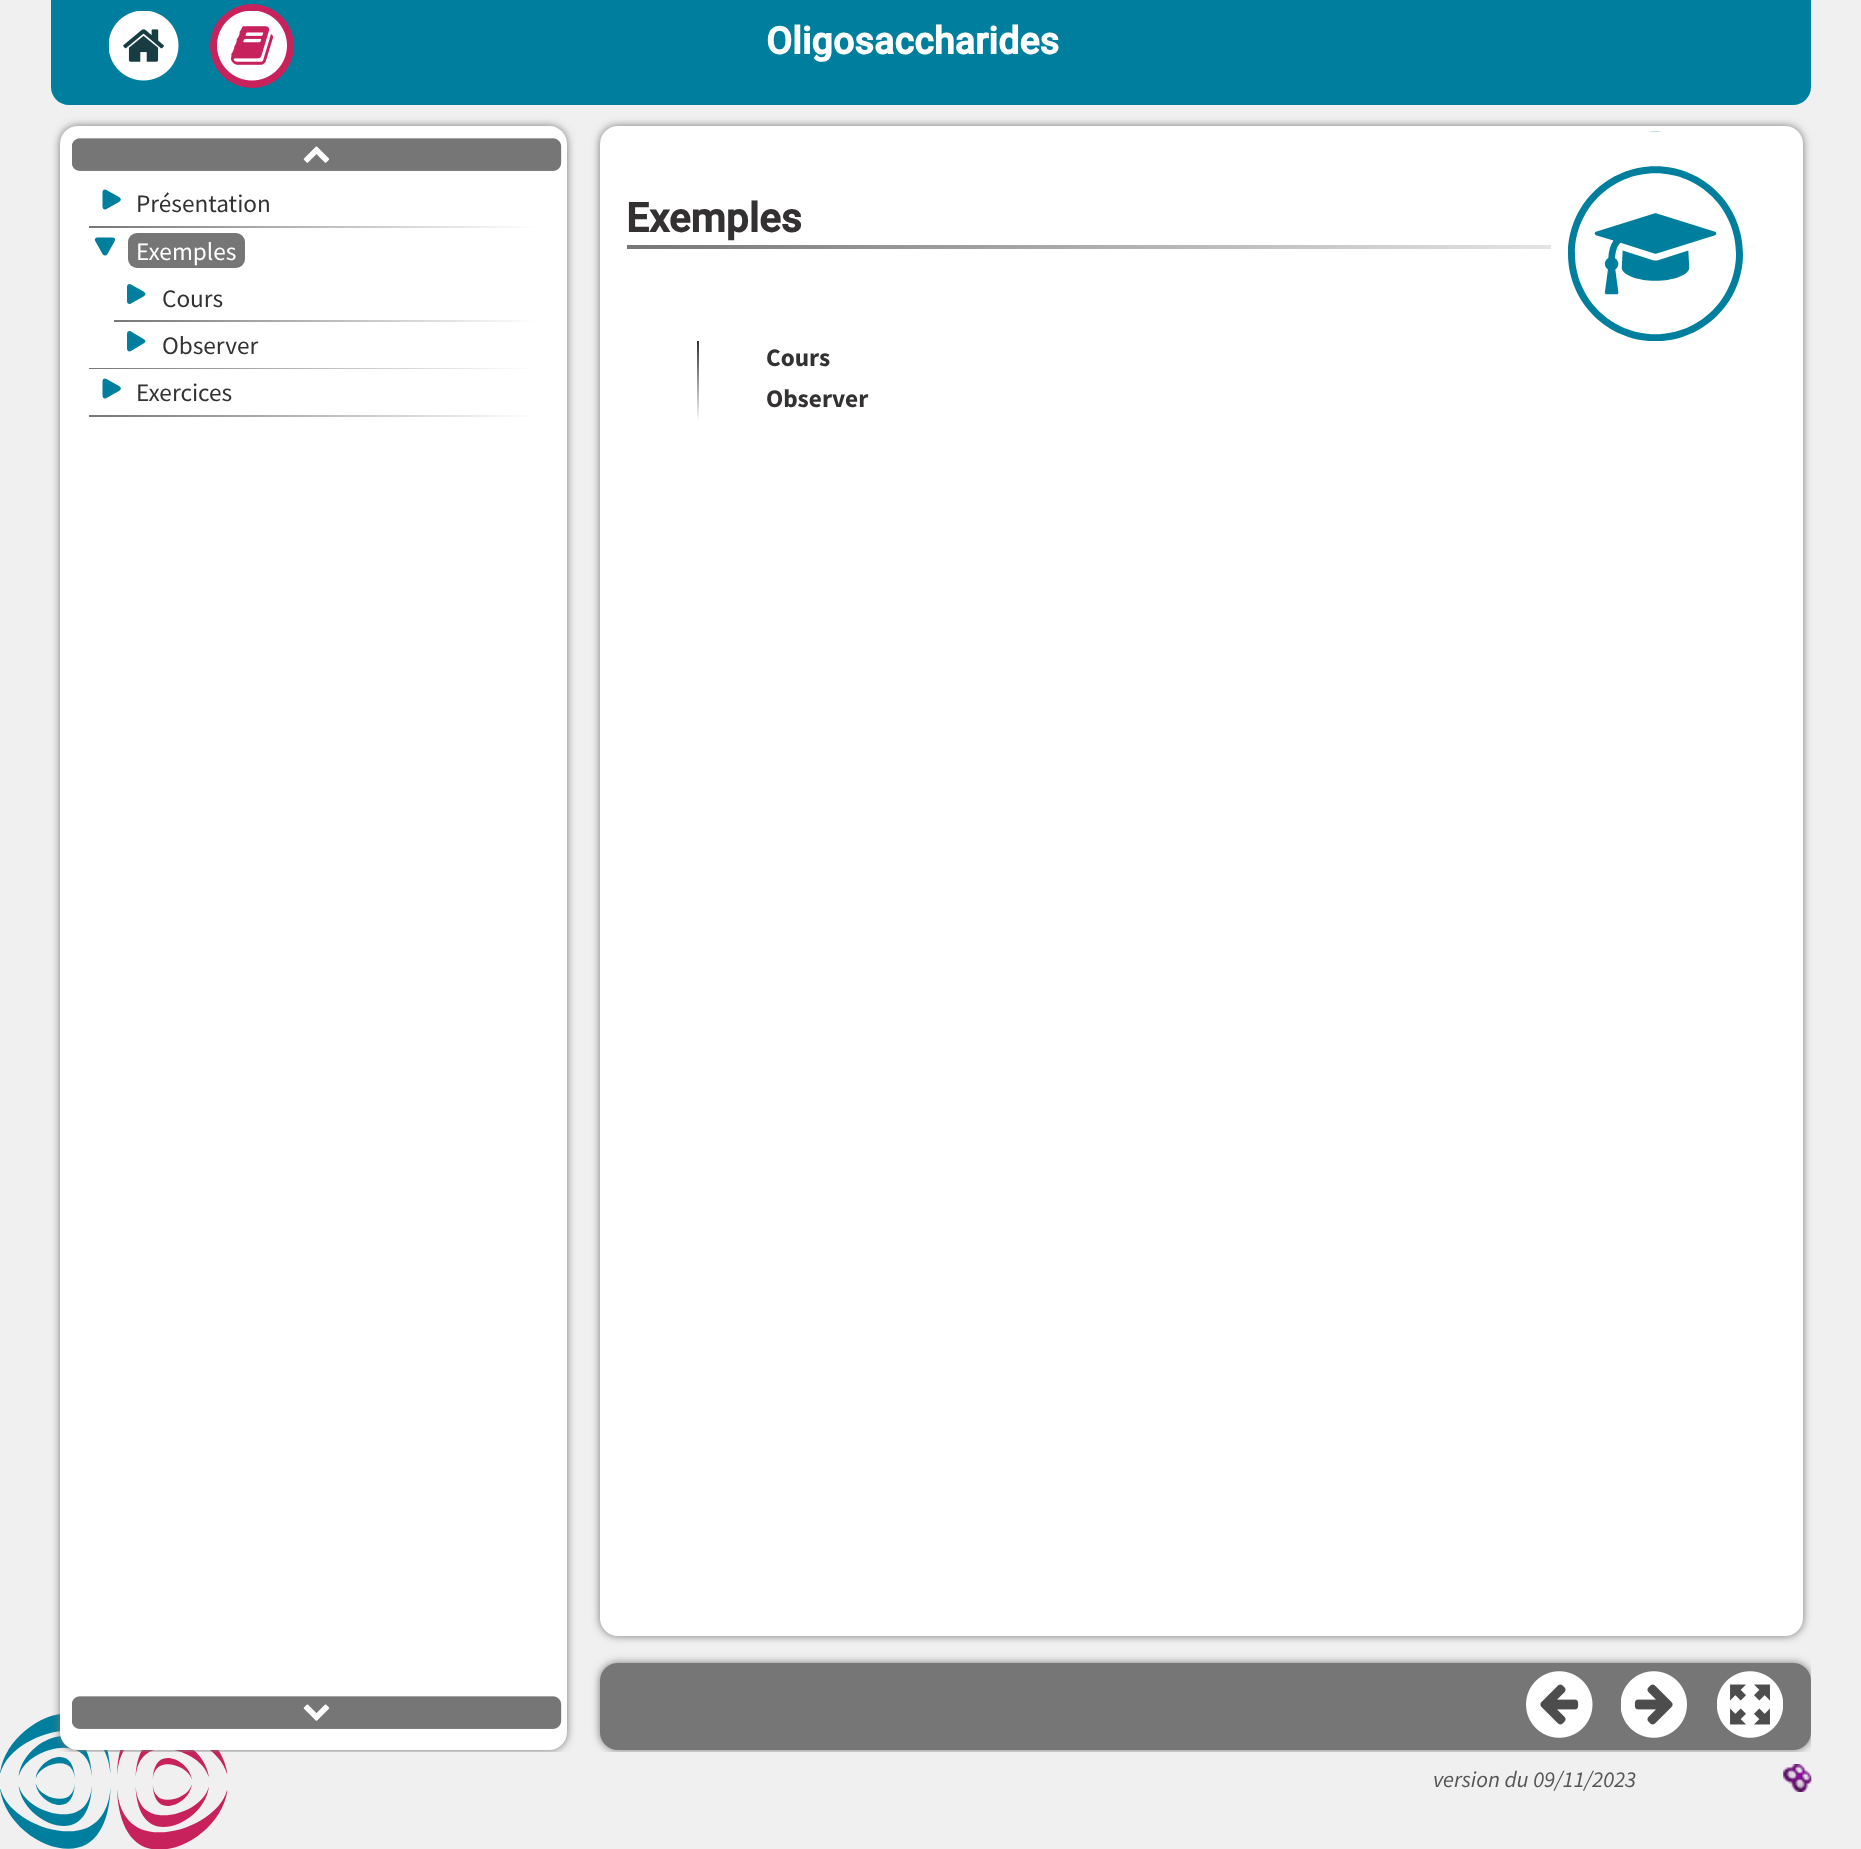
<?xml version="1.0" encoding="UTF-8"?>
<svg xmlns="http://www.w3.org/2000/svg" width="1861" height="1849">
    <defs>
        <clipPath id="clip1"><rect x="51" y="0" width="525" height="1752"/></clipPath>
        <filter id="blur1" x="-50%" y="-200%" width="200%" height="500%"><feGaussianBlur stdDeviation="4.5"/></filter>
        <linearGradient id="g1" gradientUnits="userSpaceOnUse" x1="89" y1="227" x2="537" y2="227"><stop offset="0" stop-color="#767676"/><stop offset="1" stop-color="#FFFFFF"/></linearGradient>
        <linearGradient id="g2" gradientUnits="userSpaceOnUse" x1="89" y1="368" x2="537" y2="368"><stop offset="0" stop-color="#767676"/><stop offset="1" stop-color="#FFFFFF"/></linearGradient>
        <linearGradient id="g3" gradientUnits="userSpaceOnUse" x1="114" y1="321" x2="537" y2="321"><stop offset="0" stop-color="#767676"/><stop offset="1" stop-color="#FFFFFF"/></linearGradient>
        <linearGradient id="g4" gradientUnits="userSpaceOnUse" x1="89" y1="416" x2="537" y2="416"><stop offset="0" stop-color="#767676"/><stop offset="1" stop-color="#FFFFFF"/></linearGradient>
        <linearGradient id="g5" gradientUnits="userSpaceOnUse" x1="627" y1="247" x2="1778" y2="247"><stop offset="0" stop-color="#767676"/><stop offset="1" stop-color="#FFFFFF"/></linearGradient>
        <linearGradient id="g6" gradientUnits="userSpaceOnUse" x1="697" y1="341" x2="697" y2="422"><stop offset="0" stop-color="#333132"/><stop offset="1" stop-color="#FFFFFF"/></linearGradient>
        <clipPath id="clip2"><rect x="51" y="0" width="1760" height="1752"/></clipPath>
    </defs>
    <rect width="100%" height="100%" fill="#F0F0F0"/>
    <image x="0" y="1714" width="228" height="135" href="img_01.png"/>
    <path d="M 51 0 H 1811 V 87 C 1811 97 1803 105 1793 105 H 69 C 59 105 51 97 51 87 Z" fill="#007E9E"/>
    <text x="766" y="54" font-family="Roboto" font-size="37.75" font-weight="700" fill="#FFFFFF">Oligosaccharides</text>
    <image x="109" y="11" width="70" height="70" href="img_02.png"/>
    <circle cx="252" cy="46" r="42" fill="#C8225D"/>
    <image x="217" y="11" width="70" height="70" href="img_03.png"/>
    <g clip-path="url(#clip1)">
        <rect x="60" y="126" width="507" height="1624" rx="18" fill="#767676" filter="url(#blur1)"/>
    </g>
    <rect x="60" y="126" width="507" height="1624" rx="18" fill="#FFFFFF"/>
    <image x="72" y="138" width="490" height="33" href="img_04.png"/>
    <rect x="89" y="226" width="448" height="2" fill="url(#g1)"/>
    <path d="M 102.5 192.5 C 102.5 190 104.5 188.5 106.5 190 L 119 197 C 121.5 198.5 121.5 200.5 119 202 L 106.5 209 C 104.5 210.5 102.5 209 102.5 206.5 Z" fill="#007E9E"/>
    <text x="136" y="212" font-family="Source Sans Pro" font-size="25.25" fill="#333132">Présentation</text>
    <rect x="89" y="368" width="448" height="1" fill="url(#g2)"/>
    <path d="M 112 237.5 C 114.5 237.5 116 239 114.5 241.5 L 107.5 254 C 106 256 104 256 102.5 254 L 95.5 241.5 C 94 239 95.5 237.5 98 237.5 Z" fill="#007E9E"/>
    <rect x="128" y="233" width="117" height="35" rx="9" fill="#767676"/>
    <text x="136" y="260" font-family="Source Sans Pro" font-size="25.25" fill="#FFFFFF">Exemples</text>
    <rect x="114" y="320" width="423" height="2" fill="url(#g3)"/>
    <path d="M 127 287 C 127 284.5 129 283 131 284.5 L 143.5 291.5 C 146 293 146 295 143.5 296.5 L 131 303.5 C 129 305 127 303.5 127 301 Z" fill="#007E9E"/>
    <text x="162" y="307" font-family="Source Sans Pro" font-size="25.25" fill="#333132">Cours</text>
    <path d="M 127 334 C 127 331.5 129 330.5 131 331.5 L 143.5 339 C 146 340 146 342.5 143.5 343.5 L 131 351 C 129 352 127 351 127 348.5 Z" fill="#007E9E"/>
    <text x="162" y="354" font-family="Source Sans Pro" font-size="25.25" fill="#333132">Observer</text>
    <rect x="89" y="415" width="448" height="2" fill="url(#g4)"/>
    <path d="M 102.5 381.5 C 102.5 379 104.5 377.5 106.5 379 L 119 386 C 121.5 387.5 121.5 389.5 119 391 L 106.5 398 C 104.5 399.5 102.5 398 102.5 395.5 Z" fill="#007E9E"/>
    <text x="136" y="401" font-family="Source Sans Pro" font-size="25.25" fill="#333132">Exercices</text>
    <image x="72" y="1696" width="490" height="33" href="img_05.png"/>
    <rect x="600" y="126" width="1203" height="1510" rx="18" fill="#767676" filter="url(#blur1)"/>
    <rect x="600" y="126" width="1203" height="1510" rx="18" fill="#FFFFFF"/>
    <rect x="627" y="245" width="1130" height="4" fill="url(#g5)"/>
    <text x="626" y="232" font-family="Roboto" font-size="40.5" font-weight="700" fill="#333132">Exemples</text>
    <image x="1551" y="131" width="192" height="210" href="img_06.png"/>
    <rect x="697" y="341" width="2" height="81" fill="url(#g6)"/>
    <text font-family="Source Sans Pro" font-size="25.25" font-weight="700" fill="#333132">
        <tspan x="766" y="366">Cours</tspan>
        <tspan x="766" y="407">Observer</tspan>
    </text>
    <image x="1783" y="1764" width="29" height="28" href="img_10.png"/>
    <g clip-path="url(#clip2)">
        <rect x="600" y="1663" width="1211" height="87" rx="18" fill="#767676" filter="url(#blur1)"/>
    </g>
    <rect x="600" y="1663" width="1211" height="87" rx="18" fill="#767676"/>
    <image x="1526" y="1671" width="67" height="67" href="img_07.png"/>
    <image x="1621" y="1671" width="66" height="67" href="img_08.png"/>
    <image x="1717" y="1671" width="66" height="67" href="img_09.png"/>
    <text x="1433" y="1787" font-family="Source Sans Pro" font-size="22.75" font-style="italic" fill="#555555">version du 09/11/2023</text>
</svg>
